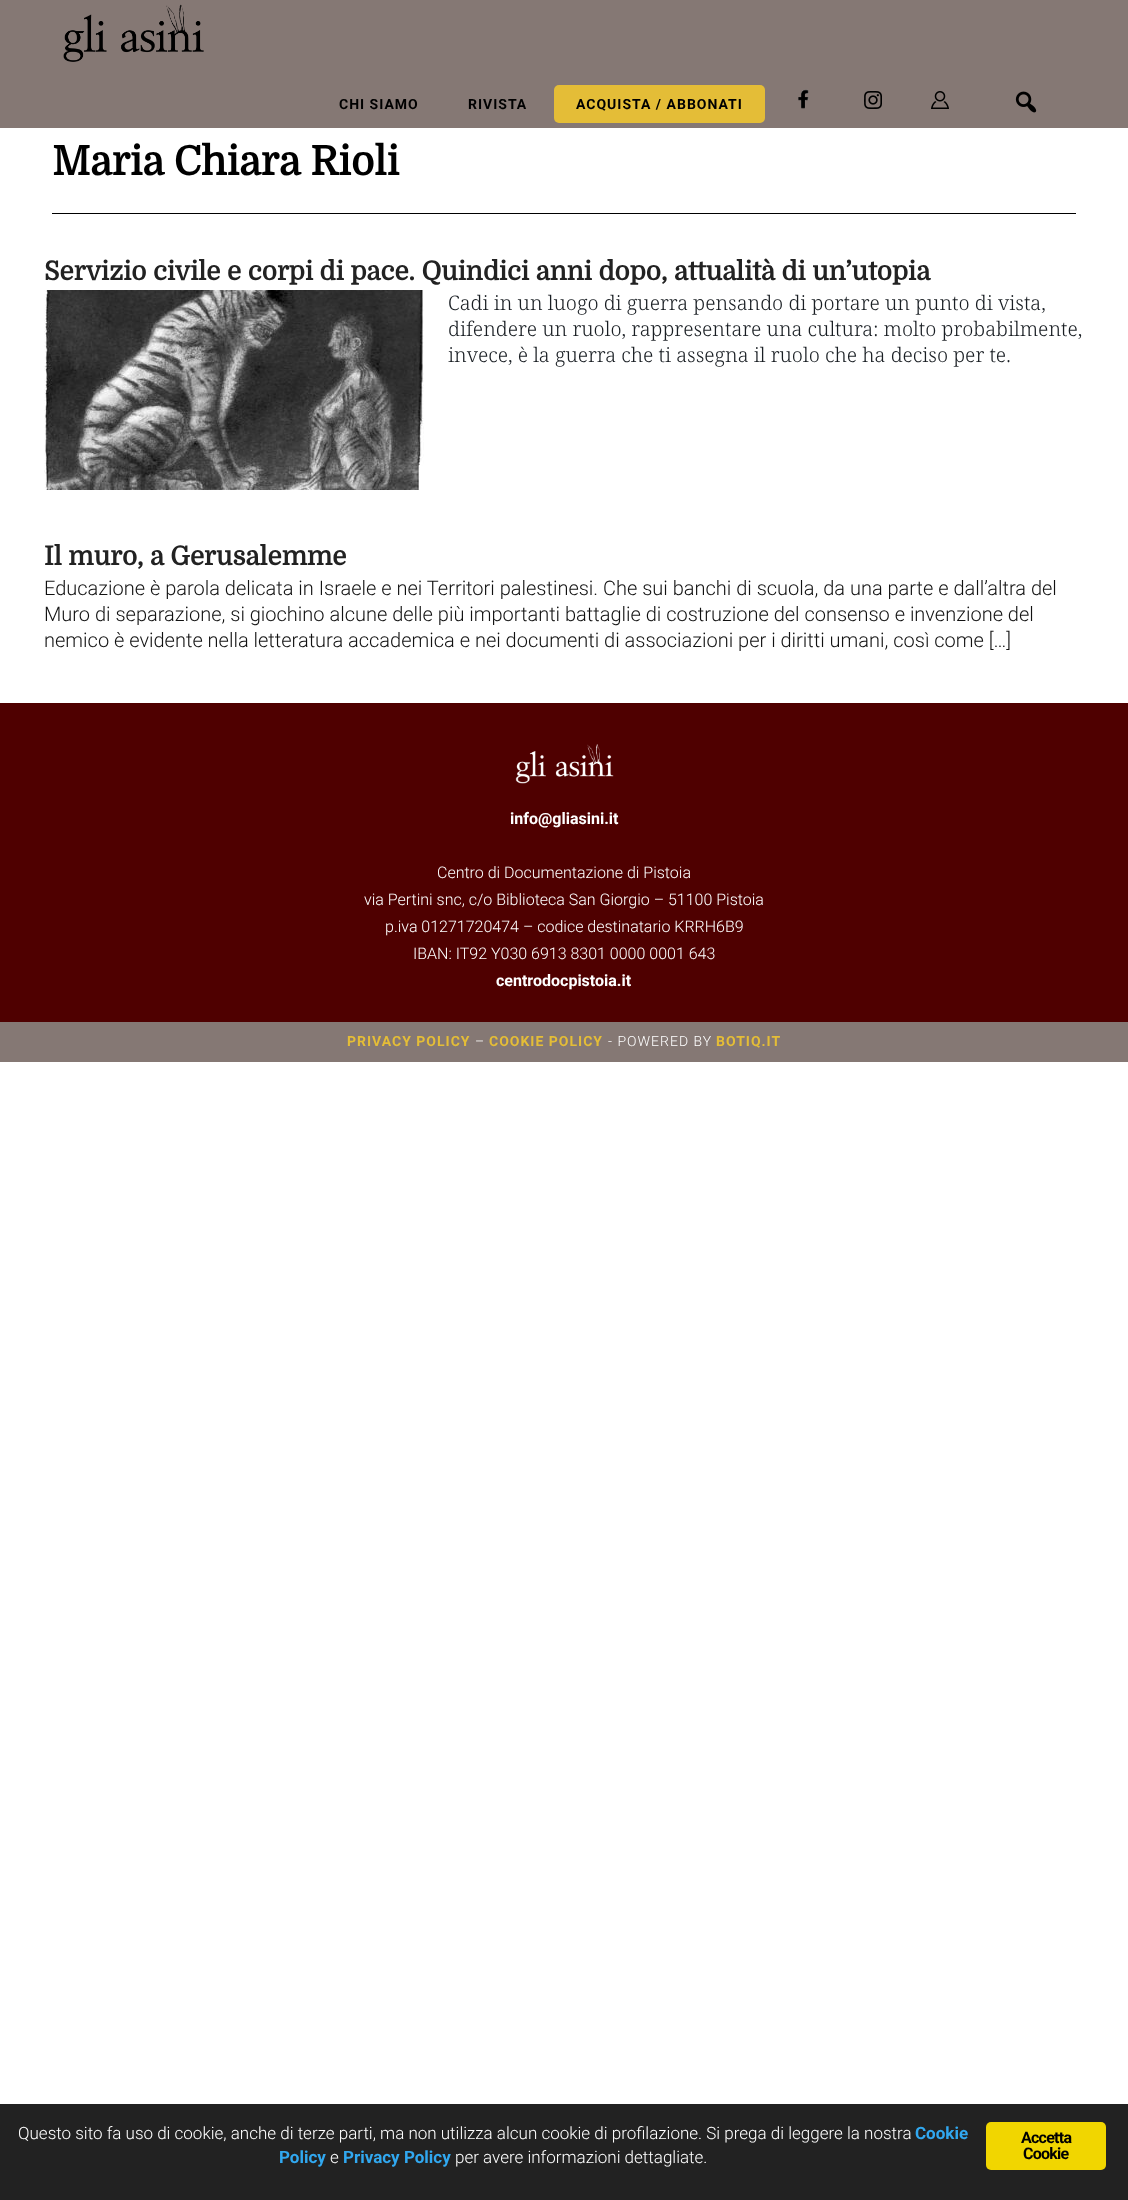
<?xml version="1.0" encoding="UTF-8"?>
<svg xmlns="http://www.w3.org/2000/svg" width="1128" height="2200">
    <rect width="100%" height="100%" fill="#FFFFFF"/>
    <rect x="0" y="0" width="1128" height="128" fill="#857874"/>
    <image x="63" y="4" width="141" height="58" href="img_01.png"/>
    <text x="339" y="109" font-family="Roboto" font-size="14" font-weight="700" letter-spacing="1" fill="#000000">CHI SIAMO</text>
    <text x="468" y="109" font-family="Roboto" font-size="14" font-weight="700" letter-spacing="1" fill="#000000">RIVISTA</text>
    <rect x="554" y="85" width="211" height="38" rx="5" fill="#E4BD37"/>
    <text x="576" y="109" font-family="Roboto" font-size="14" font-weight="700" letter-spacing="1" fill="#000000">ACQUISTA / ABBONATI</text>
    <image x="798" y="89" width="11" height="20" href="img_02.png"/>
    <image x="864" y="91" width="18" height="18" href="img_03.png"/>
    <image x="931" y="91" width="18" height="18" href="img_04.png"/>
    <image x="1015" y="91" width="22" height="22" href="img_05.png"/>
    <rect x="52" y="213" width="1024" height="1" fill="#000000"/>
    <text x="52" y="175" font-family="Domine" font-size="40" font-weight="700" fill="#000000">Maria Chiara Rioli</text>
    <text x="44" y="280" font-family="Domine" font-size="26" font-weight="700" fill="#222222">Servizio civile e corpi di pace. Quindici anni dopo, attualità di un’utopia</text>
    <image x="44" y="290" width="380" height="200" href="img_06.png"/>
    <text font-family="Noto Serif" font-size="20" font-weight="300" fill="#191E23">
        <tspan x="448" y="310">Cadi in un luogo di guerra pensando di portare un punto di vista,</tspan>
        <tspan x="448" y="336">difendere un ruolo, rappresentare una cultura: molto probabilmente,</tspan>
        <tspan x="448" y="362">invece, è la guerra che ti assegna il ruolo che ha deciso per te.</tspan>
    </text>
    <text x="44" y="565" font-family="Domine" font-size="26" font-weight="700" fill="#222222">Il muro, a Gerusalemme</text>
    <text font-family="Roboto" font-size="20" font-weight="300" fill="#111111">
        <tspan x="44" y="595">Educazione è parola delicata in Israele e nei Territori palestinesi. Che sui banchi di scuola, da una parte e dall’altra del</tspan>
        <tspan x="44" y="621">Muro di separazione, si giochino alcune delle più importanti battaglie di costruzione del consenso e invenzione del</tspan>
        <tspan x="44" y="647">nemico è evidente nella letteratura accademica e nei documenti di associazioni per i diritti umani, così come […]</tspan>
    </text>
    <rect x="0" y="703" width="1128" height="319" fill="#4F0000"/>
    <image x="515" y="744" width="99" height="40" href="img_07.png"/>
    <text x="510" y="824" font-family="Roboto" font-size="16" font-weight="700" fill="#FFFFFF">info@gliasini.it</text>
    <text x="437" y="878" font-family="Roboto" font-size="16" font-weight="300" fill="#FFFFFF">Centro di Documentazione di Pistoia</text>
    <text x="364" y="905" font-family="Roboto" font-size="16" font-weight="300" fill="#FFFFFF">via Pertini snc, c/o Biblioteca San Giorgio – 51100 Pistoia</text>
    <text x="385" y="932" font-family="Roboto" font-size="16" font-weight="300" fill="#FFFFFF">p.iva 01271720474 – codice destinatario KRRH6B9</text>
    <text x="413" y="959" font-family="Roboto" font-size="16" font-weight="300" fill="#FFFFFF">IBAN: IT92 Y030 6913 8301 0000 0001 643</text>
    <text x="496" y="986" font-family="Roboto" font-size="16" font-weight="700" fill="#FFFFFF">centrodocpistoia.it</text>
    <rect x="0" y="1022" width="1128" height="40" fill="#857874"/>
    <text x="347" y="1046" font-family="Roboto" font-size="14" font-weight="700" letter-spacing="1" fill="#E4BD37">PRIVACY POLICY</text>
    <text x="475" y="1046" font-family="Roboto" font-size="14" font-weight="300" letter-spacing="1" fill="#FFFFFF">–</text>
    <text x="489" y="1046" font-family="Roboto" font-size="14" font-weight="700" letter-spacing="1" fill="#E4BD37">COOKIE POLICY</text>
    <text x="608" y="1046" font-family="Roboto" font-size="14" font-weight="300" letter-spacing="1" fill="#FFFFFF">- POWERED BY</text>
    <text x="716" y="1046" font-family="Roboto" font-size="14" font-weight="700" letter-spacing="1" fill="#E4BD37">BOTIQ.IT</text>
    <rect x="0" y="2104" width="1128" height="96" fill="#222222"/>
    <text x="18" y="2139" font-family="Roboto" font-size="17" font-weight="300" fill="#FFFFFF">Questo sito fa uso di cookie, anche di terze parti, ma non utilizza alcun cookie di profilazione. Si prega di leggere la nostra</text>
    <text x="915" y="2139" font-family="Roboto" font-size="17" font-weight="700" fill="#31A8F0">Cookie</text>
    <text x="279" y="2163" font-family="Roboto" font-size="17" font-weight="700" fill="#31A8F0">Policy</text>
    <text x="330" y="2163" font-family="Roboto" font-size="17" font-weight="300" fill="#FFFFFF">e</text>
    <text x="343" y="2163" font-family="Roboto" font-size="17" font-weight="700" fill="#31A8F0">Privacy Policy</text>
    <text x="455" y="2163" font-family="Roboto" font-size="17" font-weight="300" fill="#FFFFFF">per avere informazioni dettagliate.</text>
    <rect x="986" y="2122" width="120" height="48" rx="5" fill="#F1D600"/>
    <text x="1021" y="2143" font-family="Roboto" font-size="16" font-weight="700" letter-spacing="-0.75" fill="#000000">Accetta</text>
    <text x="1023" y="2159" font-family="Roboto" font-size="16" font-weight="700" letter-spacing="-0.75" fill="#000000">Cookie</text>
</svg>
